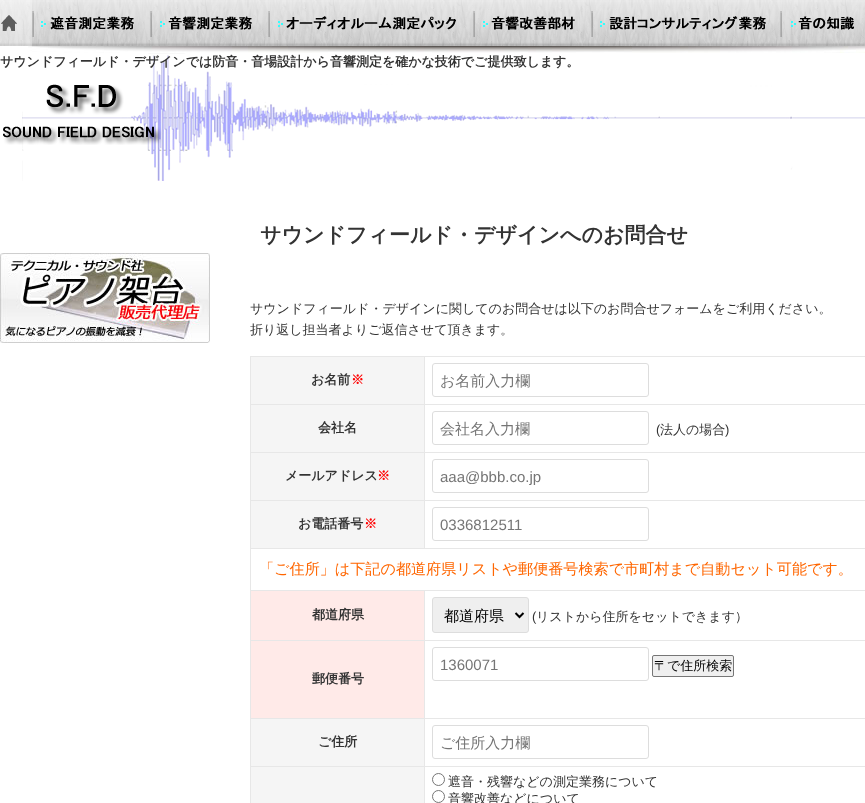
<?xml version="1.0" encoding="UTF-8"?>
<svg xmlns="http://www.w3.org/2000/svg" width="865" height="803">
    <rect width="100%" height="100%" fill="#FFFFFF"/>
    <image x="28" y="46" width="837" height="7" href="img_01.png"/>
    <image x="0" y="0" width="32" height="46" href="img_02.png"/>
    <image x="32" y="0" width="118" height="46" href="img_03.png"/>
    <image x="150" y="0" width="118" height="46" href="img_04.png"/>
    <image x="268" y="0" width="205" height="46" href="img_05.png"/>
    <image x="473" y="0" width="118" height="46" href="img_06.png"/>
    <image x="591" y="0" width="189" height="46" href="img_07.png"/>
    <image x="780" y="0" width="85" height="46" href="img_08.png"/>
    <image x="3" y="53" width="862" height="128" href="img_09.png"/>
    <text x="0" y="66" font-family="WenQuanYi Zen Hei" font-size="13" font-weight="700" fill="#333333">サウンドフィールド・デザインでは防音・音場設計から音響測定を確かな技術でご提供致します。</text>
    <image x="0" y="253" width="210" height="90" href="img_10.png"/>
    <text x="260" y="242" font-family="WenQuanYi Zen Hei" font-size="21" font-weight="700" fill="#333333">サウンドフィールド・デザインへのお問合せ</text>
    <text font-family="WenQuanYi Zen Hei" font-size="13" font-weight="500" fill="#333333">
        <tspan x="250" y="313">サウンドフィールド・デザインに関してのお問合せは以下のお問合せフォームをご利用ください。</tspan>
        <tspan x="250" y="334">折り返し担当者よりご返信させて頂きます。</tspan>
    </text>
    <rect x="251" y="357" width="173" height="47" fill="#F5F5F5"/>
    <rect x="424" y="356" width="441" height="1" fill="#E7E7E7"/>
    <rect x="424" y="404" width="441" height="1" fill="#E7E7E7"/>
    <rect x="424" y="452" width="441" height="1" fill="#E7E7E7"/>
    <rect x="424" y="500" width="441" height="1" fill="#E7E7E7"/>
    <rect x="250" y="548" width="615" height="1" fill="#E7E7E7"/>
    <rect x="424" y="500" width="1" height="49" fill="#E7E7E7"/>
    <rect x="250" y="500" width="175" height="1" fill="#E7E7E7"/>
    <rect x="424" y="452" width="1" height="49" fill="#E7E7E7"/>
    <rect x="250" y="452" width="175" height="1" fill="#E7E7E7"/>
    <rect x="424" y="404" width="1" height="49" fill="#E7E7E7"/>
    <rect x="250" y="404" width="175" height="1" fill="#E7E7E7"/>
    <rect x="424" y="356" width="1" height="49" fill="#E7E7E7"/>
    <rect x="250" y="356" width="175" height="1" fill="#E7E7E7"/>
    <rect x="424" y="590" width="441" height="1" fill="#E7E7E7"/>
    <rect x="424" y="640" width="441" height="1" fill="#E7E7E7"/>
    <rect x="424" y="718" width="441" height="1" fill="#E7E7E7"/>
    <rect x="424" y="766" width="441" height="1" fill="#E7E7E7"/>
    <rect x="424" y="766" width="1" height="37" fill="#E7E7E7"/>
    <rect x="250" y="766" width="175" height="1" fill="#E7E7E7"/>
    <rect x="424" y="718" width="1" height="49" fill="#E7E7E7"/>
    <rect x="250" y="718" width="175" height="1" fill="#E7E7E7"/>
    <rect x="424" y="640" width="1" height="79" fill="#E7E7E7"/>
    <rect x="250" y="640" width="175" height="1" fill="#E7E7E7"/>
    <rect x="424" y="590" width="1" height="51" fill="#E7E7E7"/>
    <rect x="250" y="590" width="175" height="1" fill="#E7E7E7"/>
    <rect x="250" y="766" width="1" height="37" fill="#E7E7E7"/>
    <rect x="250" y="718" width="1" height="49" fill="#E7E7E7"/>
    <rect x="250" y="640" width="1" height="79" fill="#E7E7E7"/>
    <rect x="250" y="590" width="1" height="51" fill="#E7E7E7"/>
    <rect x="250" y="548" width="1" height="43" fill="#E7E7E7"/>
    <rect x="250" y="500" width="1" height="49" fill="#E7E7E7"/>
    <rect x="250" y="452" width="1" height="49" fill="#E7E7E7"/>
    <rect x="250" y="404" width="1" height="49" fill="#E7E7E7"/>
    <rect x="250" y="356" width="1" height="49" fill="#E7E7E7"/>
    <text x="311" y="384" font-family="WenQuanYi Zen Hei" font-size="13" font-weight="700" fill="#333333">お名前</text>
    <text x="351" y="384" font-family="WenQuanYi Zen Hei" font-size="13" font-weight="700" fill="#FF0000">※</text>
    <rect x="432.5" y="363.5" width="216" height="33" rx="2.5" fill="none" stroke="#DDDDDD"/>
    <text x="440" y="386" font-family="WenQuanYi Zen Hei" font-size="15" font-weight="500" fill="#757575">お名前入力欄</text>
    <rect x="251" y="405" width="173" height="47" fill="#F5F5F5"/>
    <text x="318" y="432" font-family="WenQuanYi Zen Hei" font-size="13" font-weight="700" fill="#333333">会社名</text>
    <rect x="432.5" y="411.5" width="216" height="33" rx="2.5" fill="none" stroke="#DDDDDD"/>
    <text x="440" y="434" font-family="WenQuanYi Zen Hei" font-size="15" font-weight="500" fill="#757575">会社名入力欄</text>
    <text x="656" y="434" font-family="Liberation Sans" font-size="13" fill="#333333">(</text>
    <text x="660" y="434" font-family="WenQuanYi Zen Hei" font-size="13" font-weight="500" fill="#333333">法人の場合</text>
    <text x="725" y="434" font-family="Liberation Sans" font-size="13" fill="#333333">)</text>
    <rect x="251" y="453" width="173" height="47" fill="#F5F5F5"/>
    <text x="285" y="480" font-family="WenQuanYi Zen Hei" font-size="13" font-weight="700" fill="#333333">メールアドレス</text>
    <text x="377" y="480" font-family="WenQuanYi Zen Hei" font-size="13" font-weight="700" fill="#FF0000">※</text>
    <rect x="432.5" y="459.5" width="216" height="33" rx="2.5" fill="none" stroke="#DDDDDD"/>
    <text x="440" y="482" font-family="Liberation Sans" font-size="15" fill="#757575">aaa@bbb.co.jp</text>
    <rect x="251" y="501" width="173" height="47" fill="#F5F5F5"/>
    <text x="298" y="528" font-family="WenQuanYi Zen Hei" font-size="13" font-weight="700" fill="#333333">お電話番号</text>
    <text x="364" y="528" font-family="WenQuanYi Zen Hei" font-size="13" font-weight="700" fill="#FF0000">※</text>
    <rect x="432.5" y="507.5" width="216" height="33" rx="2.5" fill="none" stroke="#DDDDDD"/>
    <text x="440" y="530" font-family="Liberation Sans" font-size="15" fill="#757575">0336812511</text>
    <text x="259" y="574" font-family="WenQuanYi Zen Hei" font-size="15.1" font-weight="500" fill="#FF6600">「ご住所」は下記の都道府県リストや郵便番号検索で市町村まで自動セット可能です。</text>
    <rect x="251" y="591" width="173" height="49" fill="#FFEAE8"/>
    <text x="312" y="619" font-family="WenQuanYi Zen Hei" font-size="13" font-weight="700" fill="#333333">都道府県</text>
    <rect x="432.5" y="597.5" width="96" height="35" rx="2.5" fill="#EFEFEF" stroke="#DDDDDD"/>
    <path d="M 515.5 613 L 519.5 617 L 523.5 613" fill="none" stroke="#000000" stroke-width="2"/>
    <text x="444" y="621" font-family="WenQuanYi Zen Hei" font-size="15" font-weight="500" fill="#000000">都道府県</text>
    <text x="532" y="621" font-family="Liberation Sans" font-size="13" fill="#333333">(</text>
    <text x="536" y="621" font-family="WenQuanYi Zen Hei" font-size="13" font-weight="500" fill="#333333">リストから住所をセットできます）</text>
    <rect x="432.5" y="647.5" width="216" height="33" rx="2.5" fill="none" stroke="#DDDDDD"/>
    <text x="440" y="670" font-family="Liberation Sans" font-size="15" fill="#757575">1360071</text>
    <rect x="652.5" y="655.5" width="81" height="21" rx="1.5" fill="#EFEFEF" stroke="#767676"/>
    <text x="654" y="670" font-family="WenQuanYi Zen Hei" font-size="13" font-weight="500" fill="#000000">〒で住所検索</text>
    <rect x="251" y="641" width="173" height="77" fill="#FFEAE8"/>
    <text x="312" y="683" font-family="WenQuanYi Zen Hei" font-size="13" font-weight="700" fill="#333333">郵便番号</text>
    <rect x="251" y="719" width="173" height="47" fill="#F5F5F5"/>
    <text x="318" y="746" font-family="WenQuanYi Zen Hei" font-size="13" font-weight="700" fill="#333333">ご住所</text>
    <rect x="432.5" y="725.5" width="216" height="33" rx="2.5" fill="none" stroke="#DDDDDD"/>
    <text x="440" y="748" font-family="WenQuanYi Zen Hei" font-size="15" font-weight="500" fill="#757575">ご住所入力欄</text>
    <rect x="251" y="767" width="173" height="36" fill="#F5F5F5"/>
    <circle cx="438.5" cy="779.5" r="6" fill="none" stroke="#767676"/>
    <text x="448" y="786" font-family="WenQuanYi Zen Hei" font-size="13" font-weight="500" fill="#333333">遮音・残響などの測定業務について</text>
    <circle cx="438.5" cy="796.5" r="6" fill="none" stroke="#767676"/>
    <text x="448" y="803" font-family="WenQuanYi Zen Hei" font-size="13" font-weight="500" fill="#333333">音響改善などについて</text>
</svg>
